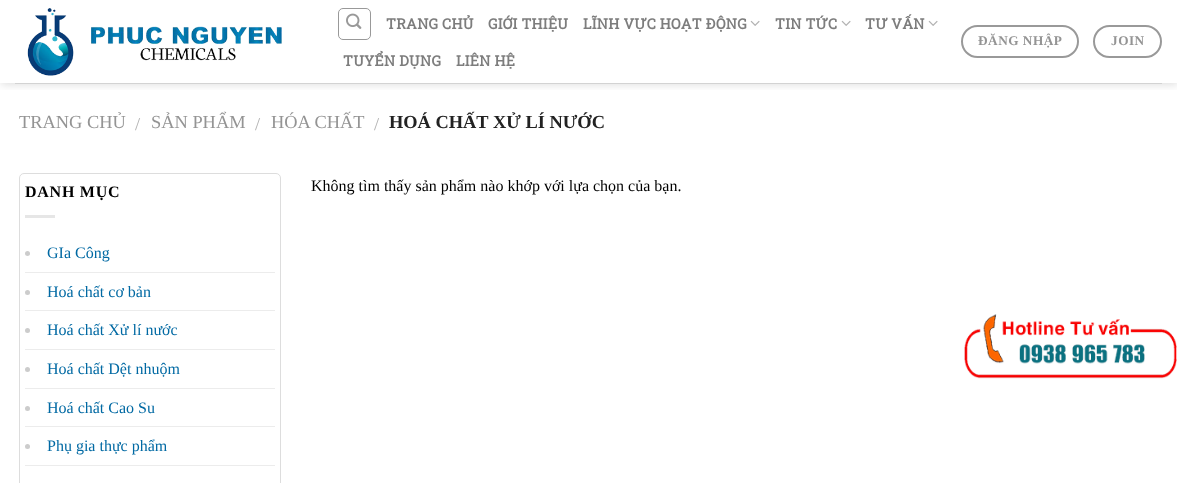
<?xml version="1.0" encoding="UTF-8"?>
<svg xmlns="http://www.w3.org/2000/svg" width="1177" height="483">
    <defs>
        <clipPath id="clip1"><rect x="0" y="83" width="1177" height="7"/></clipPath>
        <filter id="blur1" x="-50%" y="-200%" width="200%" height="500%"><feGaussianBlur stdDeviation="5"/></filter>
    </defs>
    <rect width="100%" height="100%" fill="#FFFFFF"/>
    <g clip-path="url(#clip1)">
        <rect x="1" y="1" width="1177" height="83" fill="#000000" fill-opacity="0.15" filter="url(#blur1)"/>
    </g>
    <image x="27" y="8" width="255" height="68" href="img_01.png"/>
    <rect x="338.5" y="8.5" width="32" height="31" rx="4.5" fill="none" stroke="#999999"/>
    <image x="346" y="13" width="16" height="16" href="img_02.png"/>
    <text x="386" y="29" font-family="Roboto Slab" font-size="14.4" font-weight="700" letter-spacing="0.25" fill="#7D7D7D">TRANG CHỦ</text>
    <text x="488" y="29" font-family="Roboto Slab" font-size="14.4" font-weight="700" letter-spacing="0.25" fill="#7D7D7D">GIỚI THIỆU</text>
    <text x="583" y="29" font-family="Roboto Slab" font-size="14.4" font-weight="700" letter-spacing="0.25" fill="#7D7D7D">LĨNH VỰC HOẠT ĐỘNG</text>
    <image x="750" y="20" width="10" height="6" href="img_03.png"/>
    <text x="775" y="29" font-family="Roboto Slab" font-size="14.4" font-weight="700" letter-spacing="0.25" fill="#7D7D7D">TIN TỨC</text>
    <image x="841" y="20" width="10" height="6" href="img_03.png"/>
    <text x="865" y="29" font-family="Roboto Slab" font-size="14.4" font-weight="700" letter-spacing="0.25" fill="#7D7D7D">TƯ VẤN</text>
    <image x="928" y="20" width="10" height="6" href="img_03.png"/>
    <text x="343" y="66" font-family="Roboto Slab" font-size="14.4" font-weight="700" letter-spacing="0.25" fill="#7D7D7D">TUYỂN DỤNG</text>
    <text x="456" y="66" font-family="Roboto Slab" font-size="14.4" font-weight="700" letter-spacing="0.25" fill="#7D7D7D">LIÊN HỆ</text>
    <rect x="962" y="26" width="116" height="31" rx="15.5" fill="none" stroke="#999999" stroke-width="2"/>
    <text x="978" y="45" font-family="Liberation Serif" font-size="13.25" font-weight="700" letter-spacing="0.5" fill="#949494">ĐĂNG NHẬP</text>
    <rect x="1094" y="26" width="67" height="31" rx="15.5" fill="none" stroke="#999999" stroke-width="2"/>
    <text x="1111" y="45" font-family="Liberation Serif" font-size="13.25" font-weight="700" letter-spacing="0.5" fill="#949494">JOIN</text>
    <rect x="15" y="83" width="1147" height="1" fill="#D3D3D3"/>
    <text x="19" y="128" font-family="Liberation Serif" font-size="18.4" fill="#949494">TRANG CHỦ</text>
    <text x="135" y="130" font-family="Liberation Serif" font-size="18.4" fill="#B2B2B2">/</text>
    <text x="151" y="128" font-family="Liberation Serif" font-size="18.4" fill="#949494">SẢN PHẨM</text>
    <text x="255" y="130" font-family="Liberation Serif" font-size="18.4" fill="#B2B2B2">/</text>
    <text x="271" y="128" font-family="Liberation Serif" font-size="18.4" fill="#949494">HÓA CHẤT</text>
    <text x="374" y="130" font-family="Liberation Serif" font-size="18.4" fill="#B2B2B2">/</text>
    <text x="389" y="128" font-family="Liberation Serif" font-size="18.4" font-weight="700" fill="#222222">HOÁ CHẤT XỬ LÍ NƯỚC</text>
    <rect x="19.5" y="173.5" width="261" height="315" rx="4.5" fill="none" stroke="#DDDDDD"/>
    <text x="25" y="197" font-family="Liberation Serif" font-size="16" font-weight="700" letter-spacing="0.75" fill="#000000">DANH MỤC</text>
    <rect x="25" y="215" width="30" height="3" fill="#E6E6E6"/>
    <circle cx="27.5" cy="253.5" r="2.5" fill="#CCCCCC"/>
    <text x="47" y="258" font-family="Liberation Serif" font-size="16" fill="#0069A3">GIa Công</text>
    <rect x="25" y="272" width="250" height="1" fill="#ECECEC"/>
    <circle cx="27.5" cy="292.5" r="2.5" fill="#CCCCCC"/>
    <text x="47" y="297" font-family="Liberation Serif" font-size="16" fill="#0069A3">Hoá chất cơ bản</text>
    <rect x="25" y="310" width="250" height="1" fill="#ECECEC"/>
    <circle cx="27.5" cy="330.5" r="2.5" fill="#CCCCCC"/>
    <text x="47" y="335" font-family="Liberation Serif" font-size="16" fill="#0069A3">Hoá chất Xử lí nước</text>
    <rect x="25" y="349" width="250" height="1" fill="#ECECEC"/>
    <circle cx="27.5" cy="369.5" r="2.5" fill="#CCCCCC"/>
    <text x="47" y="374" font-family="Liberation Serif" font-size="16" fill="#0069A3">Hoá chất Dệt nhuộm</text>
    <rect x="25" y="388" width="250" height="1" fill="#ECECEC"/>
    <circle cx="27.5" cy="408.5" r="2.5" fill="#CCCCCC"/>
    <text x="47" y="413" font-family="Liberation Serif" font-size="16" fill="#0069A3">Hoá chất Cao Su</text>
    <rect x="25" y="426" width="250" height="1" fill="#ECECEC"/>
    <circle cx="27.5" cy="446.5" r="2.5" fill="#CCCCCC"/>
    <text x="47" y="451" font-family="Liberation Serif" font-size="16" fill="#0069A3">Phụ gia thực phẩm</text>
    <rect x="25" y="465" width="250" height="1" fill="#ECECEC"/>
    <text x="311" y="191" font-family="Liberation Serif" font-size="16" fill="#000000">Không tìm thấy sản phẩm nào khớp với lựa chọn của bạn.</text>
    <image x="964" y="314" width="213" height="65" href="img_04.png"/>
</svg>
